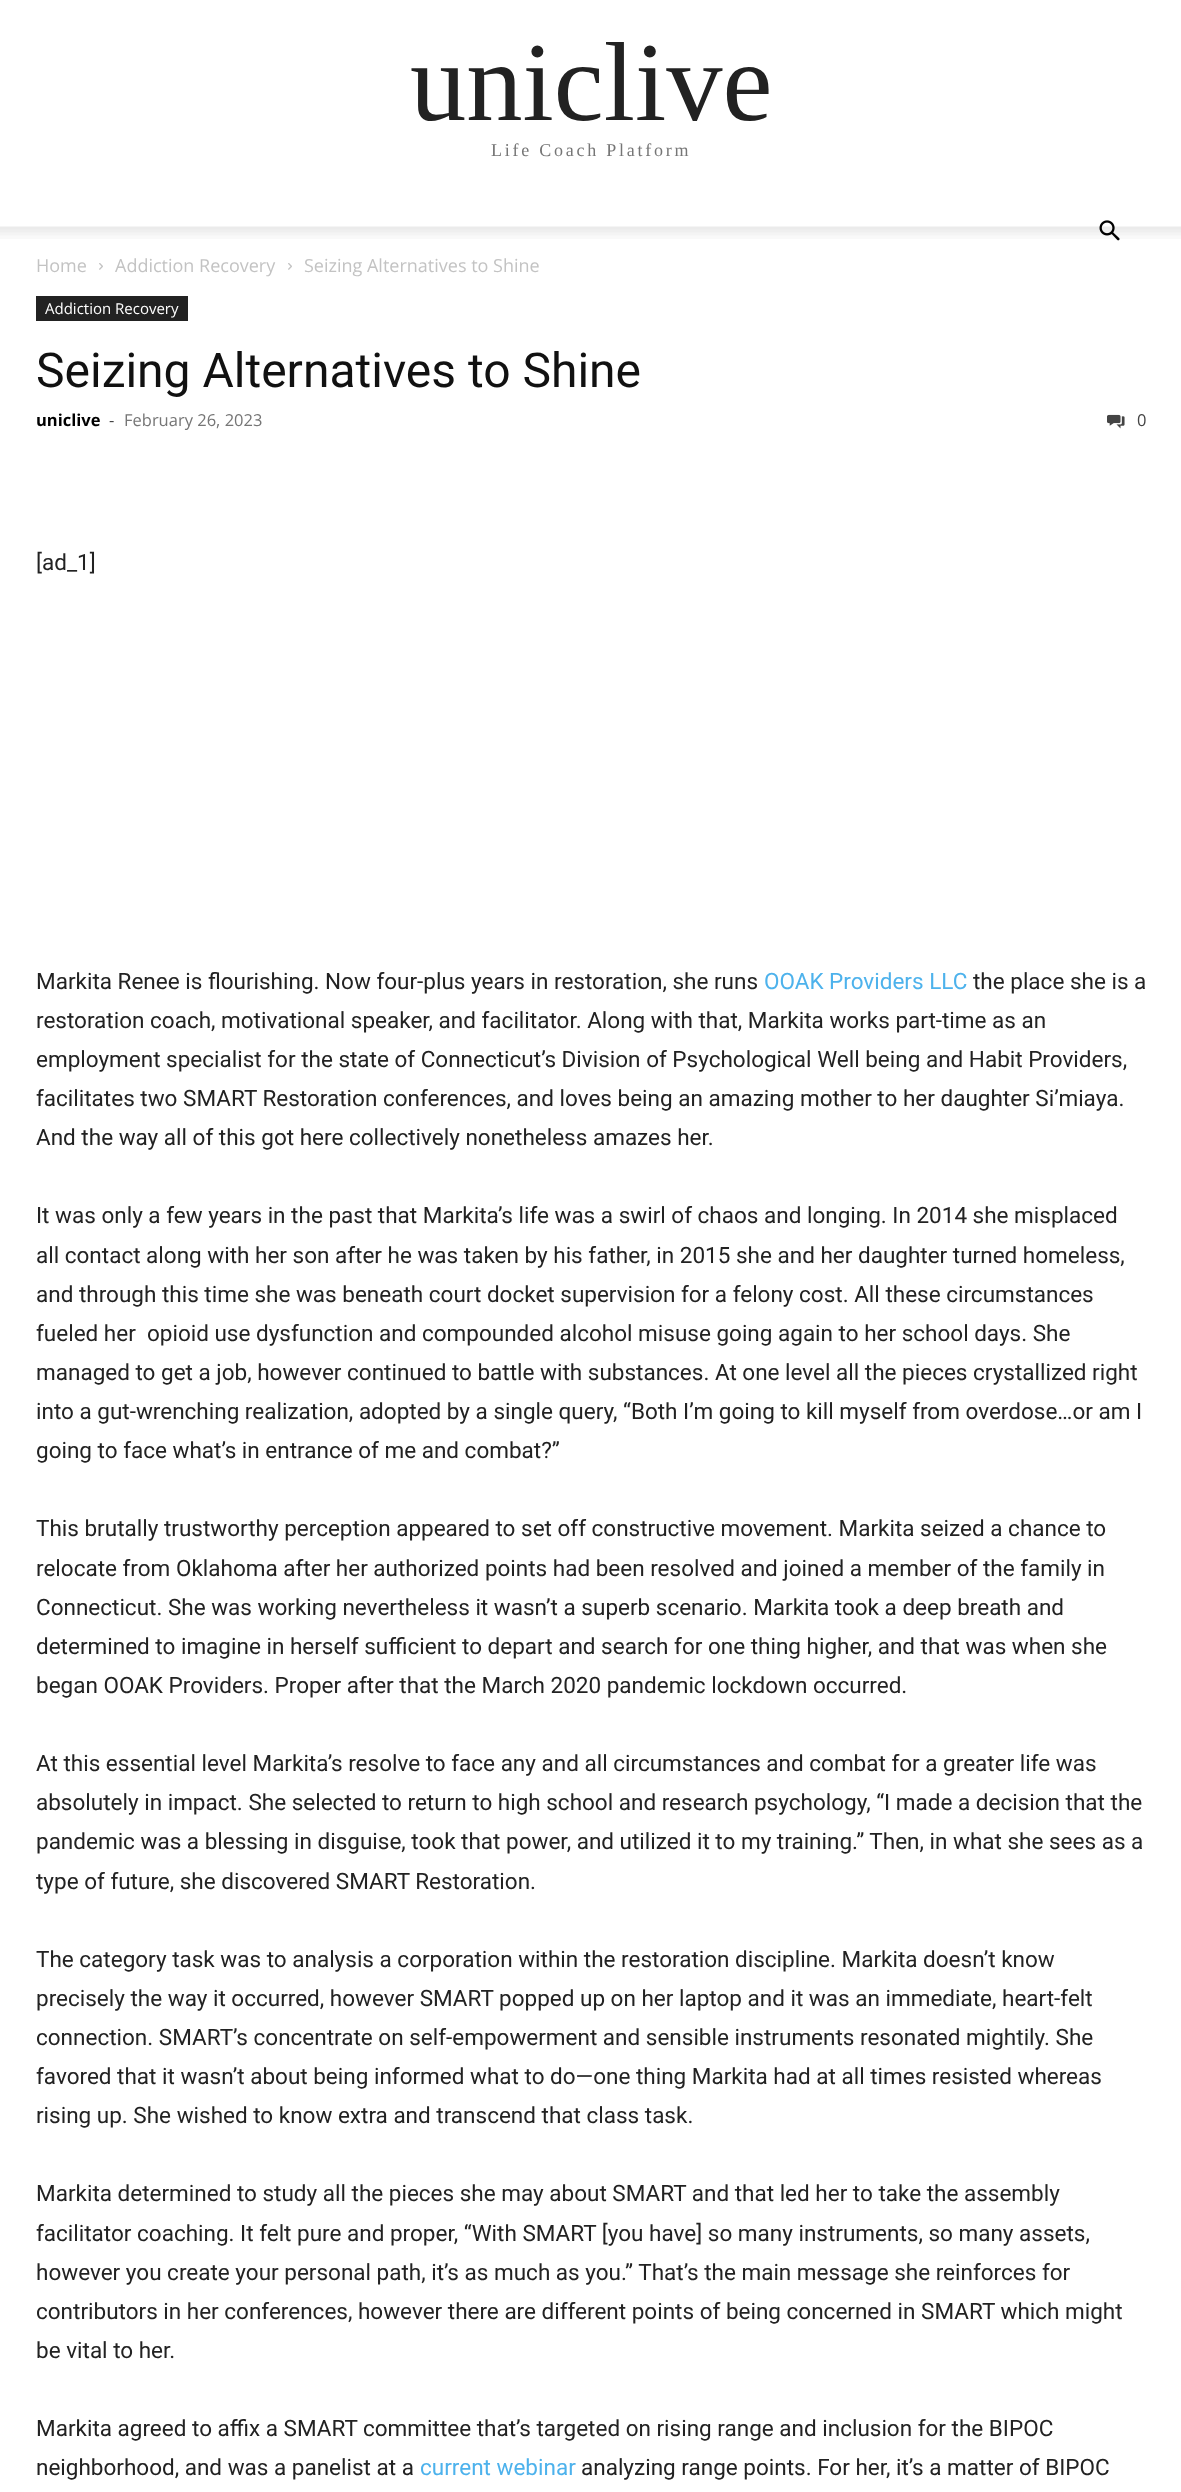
<?xml version="1.0" encoding="UTF-8"?>
<svg xmlns="http://www.w3.org/2000/svg" width="1181" height="2492">
    <rect width="100%" height="100%" fill="#FFFFFF"/>
    <text x="410" y="120" font-family="Liberation Serif" font-size="112.5" fill="#222222">uniclive</text>
    <text x="491" y="156" font-family="Liberation Serif" font-size="18" letter-spacing="2.75" fill="#767676">Life Coach Platform</text>
    <image x="0" y="226" width="1181" height="13" href="img_02.png"/>
    <image x="1099" y="220" width="21" height="21" href="img_01.png"/>
    <text x="36" y="272" font-family="Open Sans" font-size="18" fill="#C3C3C3">Home</text>
    <image x="99" y="263" width="4" height="7" href="img_03.png"/>
    <text x="115" y="272" font-family="Open Sans" font-size="18" fill="#C3C3C3">Addiction Recovery</text>
    <image x="288" y="263" width="4" height="7" href="img_03.png"/>
    <text x="304" y="272" font-family="Open Sans" font-size="18" fill="#C3C3C3">Seizing Alternatives to Shine</text>
    <rect x="36" y="296" width="152" height="25" fill="#222222"/>
    <text x="45" y="314" font-family="Open Sans" font-size="15" fill="#FFFFFF">Addiction Recovery</text>
    <text x="36" y="387" font-family="Roboto" font-size="48" fill="#111111">Seizing Alternatives to Shine</text>
    <text x="36" y="426" font-family="Open Sans" font-size="16.5" font-weight="700" fill="#000000">uniclive</text>
    <text x="109" y="426" font-family="Open Sans" font-size="16.5" fill="#444444">-</text>
    <text x="124" y="426" font-family="Open Sans" font-size="16.5" fill="#767676">February 26, 2023</text>
    <image x="1107" y="414" width="18" height="15" href="img_04.png"/>
    <text x="1137" y="426" font-family="Open Sans" font-size="16.5" fill="#444444">0</text>
    <text x="36" y="570" font-family="Roboto" font-size="22.5" fill="#222222">[ad_1]</text>
    <text x="36" y="989" font-family="Roboto" font-size="22.5" fill="#222222">Markita Renee is flourishing. Now four-plus years in restoration, she runs</text>
    <text x="764" y="989" font-family="Roboto" font-size="22.5" fill="#4DB2EC">OOAK Providers LLC</text>
    <text x="973" y="989" font-family="Roboto" font-size="22.5" fill="#222222">the place she is a</text>
    <text font-family="Roboto" font-size="22.5" fill="#222222">
        <tspan x="36" y="1028">restoration coach, motivational speaker, and facilitator. Along with that, Markita works part-time as an</tspan>
        <tspan x="36" y="1067">employment specialist for the state of Connecticut’s Division of Psychological Well being and Habit Providers,</tspan>
        <tspan x="36" y="1106">facilitates two SMART Restoration conferences, and loves being an amazing mother to her daughter Si’miaya.</tspan>
        <tspan x="36" y="1145">And the way all of this got here collectively nonetheless amazes her.</tspan>
    </text>
    <text font-family="Roboto" font-size="22.5" fill="#222222" xml:space="preserve"><tspan x="36" y="1223">It was only a few years in the past that Markita’s life was a swirl of chaos and longing. In 2014 she misplaced</tspan><tspan x="36" y="1263">all contact along with her son after he was taken by his father, in 2015 she and her daughter turned homeless,</tspan><tspan x="36" y="1302">and through this time she was beneath court docket supervision for a felony cost. All these circumstances</tspan><tspan x="36" y="1341">fueled her  opioid use dysfunction and compounded alcohol misuse going again to her school days. She</tspan><tspan x="36" y="1380">managed to get a job, however continued to battle with substances. At one level all the pieces crystallized right</tspan><tspan x="36" y="1419">into a gut-wrenching realization, adopted by a single query, “Both I’m going to kill myself from overdose…or am I</tspan><tspan x="36" y="1458">going to face what’s in entrance of me and combat?”</tspan></text>
    <text font-family="Roboto" font-size="22.5" fill="#222222">
        <tspan x="36" y="1536">This brutally trustworthy perception appeared to set off constructive movement. Markita seized a chance to</tspan>
        <tspan x="36" y="1576">relocate from Oklahoma after her authorized points had been resolved and joined a member of the family in</tspan>
        <tspan x="36" y="1615">Connecticut. She was working nevertheless it wasn’t a superb scenario. Markita took a deep breath and</tspan>
        <tspan x="36" y="1654">determined to imagine in herself sufficient to depart and search for one thing higher, and that was when she</tspan>
        <tspan x="36" y="1693">began OOAK Providers. Proper after that the March 2020 pandemic lockdown occurred.</tspan>
    </text>
    <text font-family="Roboto" font-size="22.5" fill="#222222">
        <tspan x="36" y="1771">At this essential level Markita’s resolve to face any and all circumstances and combat for a greater life was</tspan>
        <tspan x="36" y="1810">absolutely in impact. She selected to return to high school and research psychology, “I made a decision that the</tspan>
        <tspan x="36" y="1849">pandemic was a blessing in disguise, took that power, and utilized it to my training.” Then, in what she sees as a</tspan>
        <tspan x="36" y="1889">type of future, she discovered SMART Restoration.</tspan>
    </text>
    <text font-family="Roboto" font-size="22.5" fill="#222222">
        <tspan x="36" y="1967">The category task was to analysis a corporation within the restoration discipline. Markita doesn’t know</tspan>
        <tspan x="36" y="2006">precisely the way it occurred, however SMART popped up on her laptop and it was an immediate, heart-felt</tspan>
        <tspan x="36" y="2045">connection. SMART’s concentrate on self-empowerment and sensible instruments resonated mightily. She</tspan>
        <tspan x="36" y="2084">favored that it wasn’t about being informed what to do—one thing Markita had at all times resisted whereas</tspan>
        <tspan x="36" y="2123">rising up. She wished to know extra and transcend that class task.</tspan>
    </text>
    <text font-family="Roboto" font-size="22.5" fill="#222222">
        <tspan x="36" y="2201">Markita determined to study all the pieces she may about SMART and that led her to take the assembly</tspan>
        <tspan x="36" y="2241">facilitator coaching. It felt pure and proper, “With SMART [you have] so many instruments, so many assets,</tspan>
        <tspan x="36" y="2280">however you create your personal path, it’s as much as you.” That’s the main message she reinforces for</tspan>
        <tspan x="36" y="2319">contributors in her conferences, however there are different points of being concerned in SMART which might</tspan>
        <tspan x="36" y="2358">be vital to her.</tspan>
    </text>
    <text font-family="Roboto" font-size="22.5" fill="#222222">
        <tspan x="36" y="2436">Markita agreed to affix a SMART committee that’s targeted on rising range and inclusion for the BIPOC</tspan>
        <tspan x="36" y="2475">neighborhood, and was a panelist at a</tspan>
    </text>
    <text x="420" y="2475" font-family="Roboto" font-size="22.5" fill="#4DB2EC">current webinar</text>
    <text x="581" y="2475" font-family="Roboto" font-size="22.5" fill="#222222">analyzing range points. For her, it’s a matter of BIPOC</text>
</svg>
